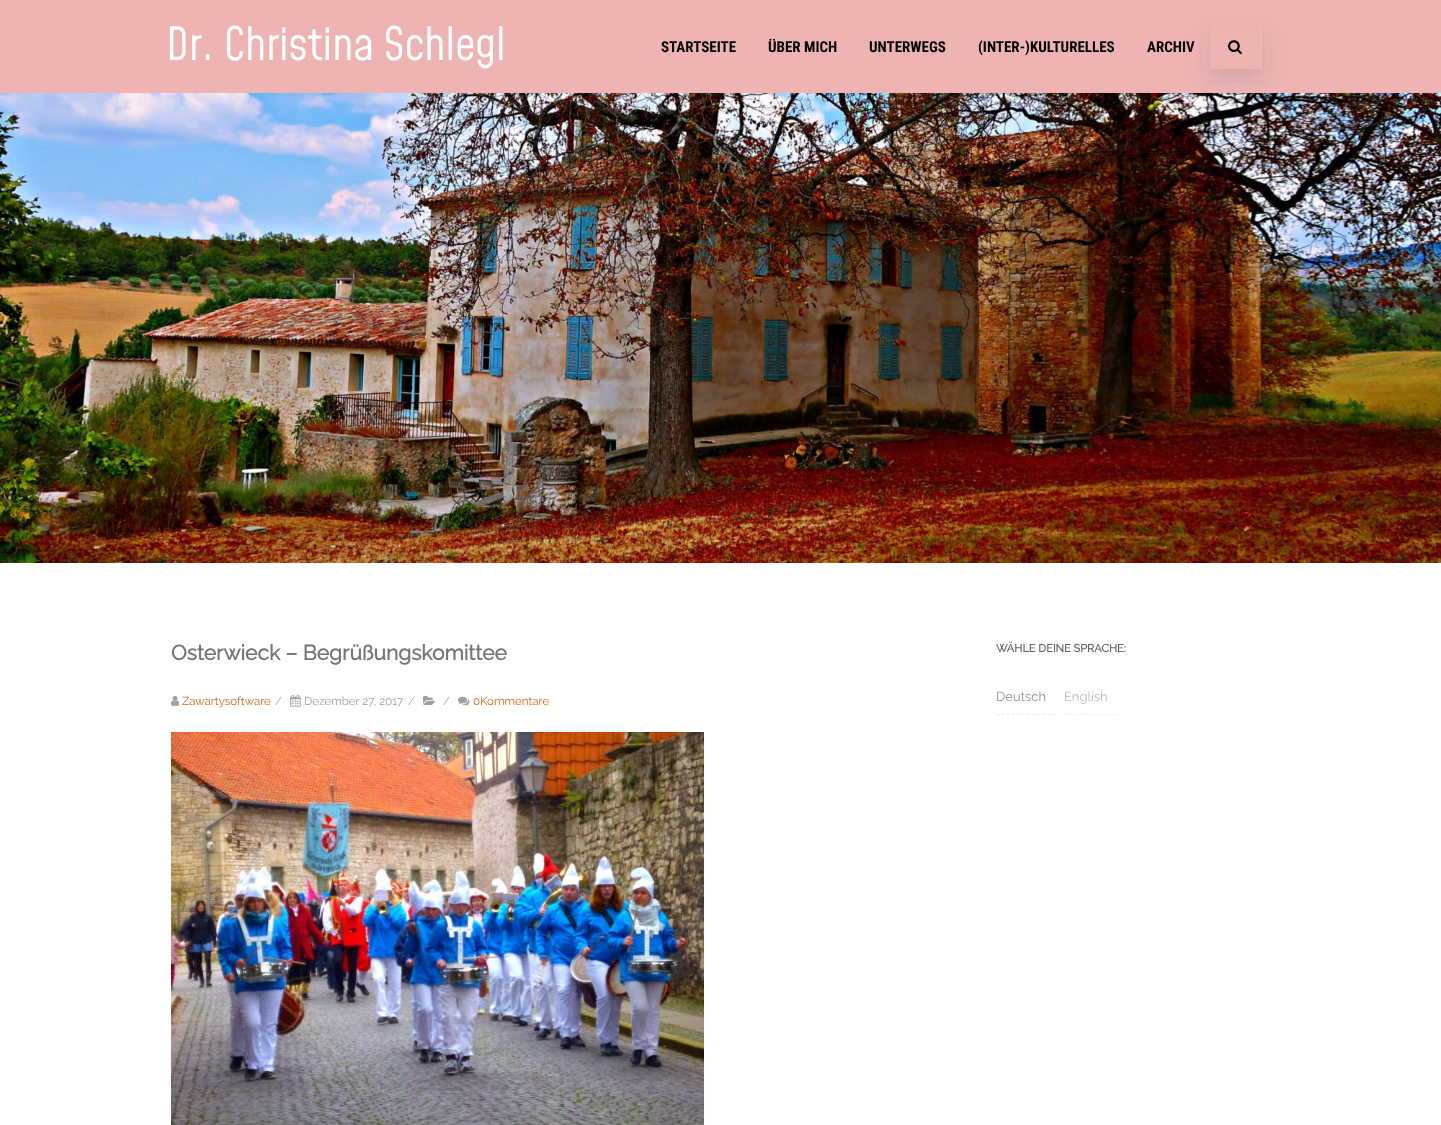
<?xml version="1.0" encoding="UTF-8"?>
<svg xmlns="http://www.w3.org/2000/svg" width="1441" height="1125">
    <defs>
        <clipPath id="clip1"><path d="M 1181 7 H 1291 V 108 H 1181 Z M 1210 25 H 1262 V 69 H 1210 Z" clip-rule="evenodd"/></clipPath>
        <filter id="blur1" x="-50%" y="-200%" width="200%" height="500%"><feGaussianBlur stdDeviation="9"/></filter>
    </defs>
    <rect width="100%" height="100%" fill="#FFFFFF"/>
    <rect x="0" y="0" width="1441" height="93" fill="#EEB4B4"/>
    <text x="166" y="60" font-family="Mohave" font-size="45" fill="#FFFFFF">Dr. Christina Schlegl</text>
    <text x="661" y="52" font-family="Roboto Condensed" font-size="15" font-weight="700" fill="#000000">STARTSEITE</text>
    <text x="768" y="52" font-family="Roboto Condensed" font-size="15" font-weight="700" fill="#000000">ÜBER MICH</text>
    <text x="869" y="52" font-family="Roboto Condensed" font-size="15" font-weight="700" fill="#000000">UNTERWEGS</text>
    <text x="978" y="52" font-family="Roboto Condensed" font-size="15" font-weight="700" fill="#000000">(INTER-)KULTURELLES</text>
    <image x="0" y="93" width="1441" height="470" href="img_02.png"/>
    <g clip-path="url(#clip1)">
        <rect x="1209" y="35" width="54" height="45" fill="#404040" fill-opacity="0.13" filter="url(#blur1)"/>
    </g>
    <text x="1147" y="52" font-family="Roboto Condensed" font-size="15" font-weight="700" fill="#000000">ARCHIV</text>
    <rect x="1261" y="25" width="1" height="44" fill="#EDB9B9"/>
    <image x="1228" y="40" width="14" height="15" href="img_01.png"/>
    <text x="171" y="660" font-family="Raleway" font-size="21" font-weight="700" fill="#747474">Osterwieck – Begrüßungskomittee</text>
    <image x="171" y="696" width="9" height="10" href="img_03.png"/>
    <text x="182" y="705" font-family="Raleway" font-size="11.5" fill="#D2691E">Zawartysoftware</text>
    <text x="275" y="705" font-family="Raleway" font-size="11.5" fill="#9F9F9F">/</text>
    <image x="290" y="695" width="11" height="12" href="img_04.png"/>
    <text x="304" y="705" font-family="Raleway" font-size="11.5" fill="#9F9F9F">Dezember 27, 2017</text>
    <text x="408" y="705" font-family="Raleway" font-size="11.5" fill="#9F9F9F">/</text>
    <image x="423" y="695" width="12" height="10" href="img_05.png"/>
    <text x="443" y="705" font-family="Raleway" font-size="11.5" fill="#9F9F9F">/</text>
    <image x="458" y="696" width="12" height="10" href="img_06.png"/>
    <text x="473" y="705" font-family="Raleway" font-size="11.5" fill="#D2691E">0Kommentare</text>
    <image x="171" y="732" width="533" height="393" href="img_07.png"/>
    <text x="996" y="652" font-family="Raleway" font-size="11" font-weight="700" fill="#636363">WÄHLE DEINE SPRACHE:</text>
    <text x="996" y="701" font-family="Raleway" font-size="13" fill="#919191">Deutsch</text>
    <path d="M 996 714.5 H 1056" fill="none" stroke="#E9E9E9" stroke-dasharray="3 2.18"/>
    <text x="1064" y="701" font-family="Raleway" font-size="13" fill="#BABABA">English</text>
    <path d="M 1064 714.5 H 1118" fill="none" stroke="#F1F1F1" stroke-dasharray="3 2.1"/>
</svg>
